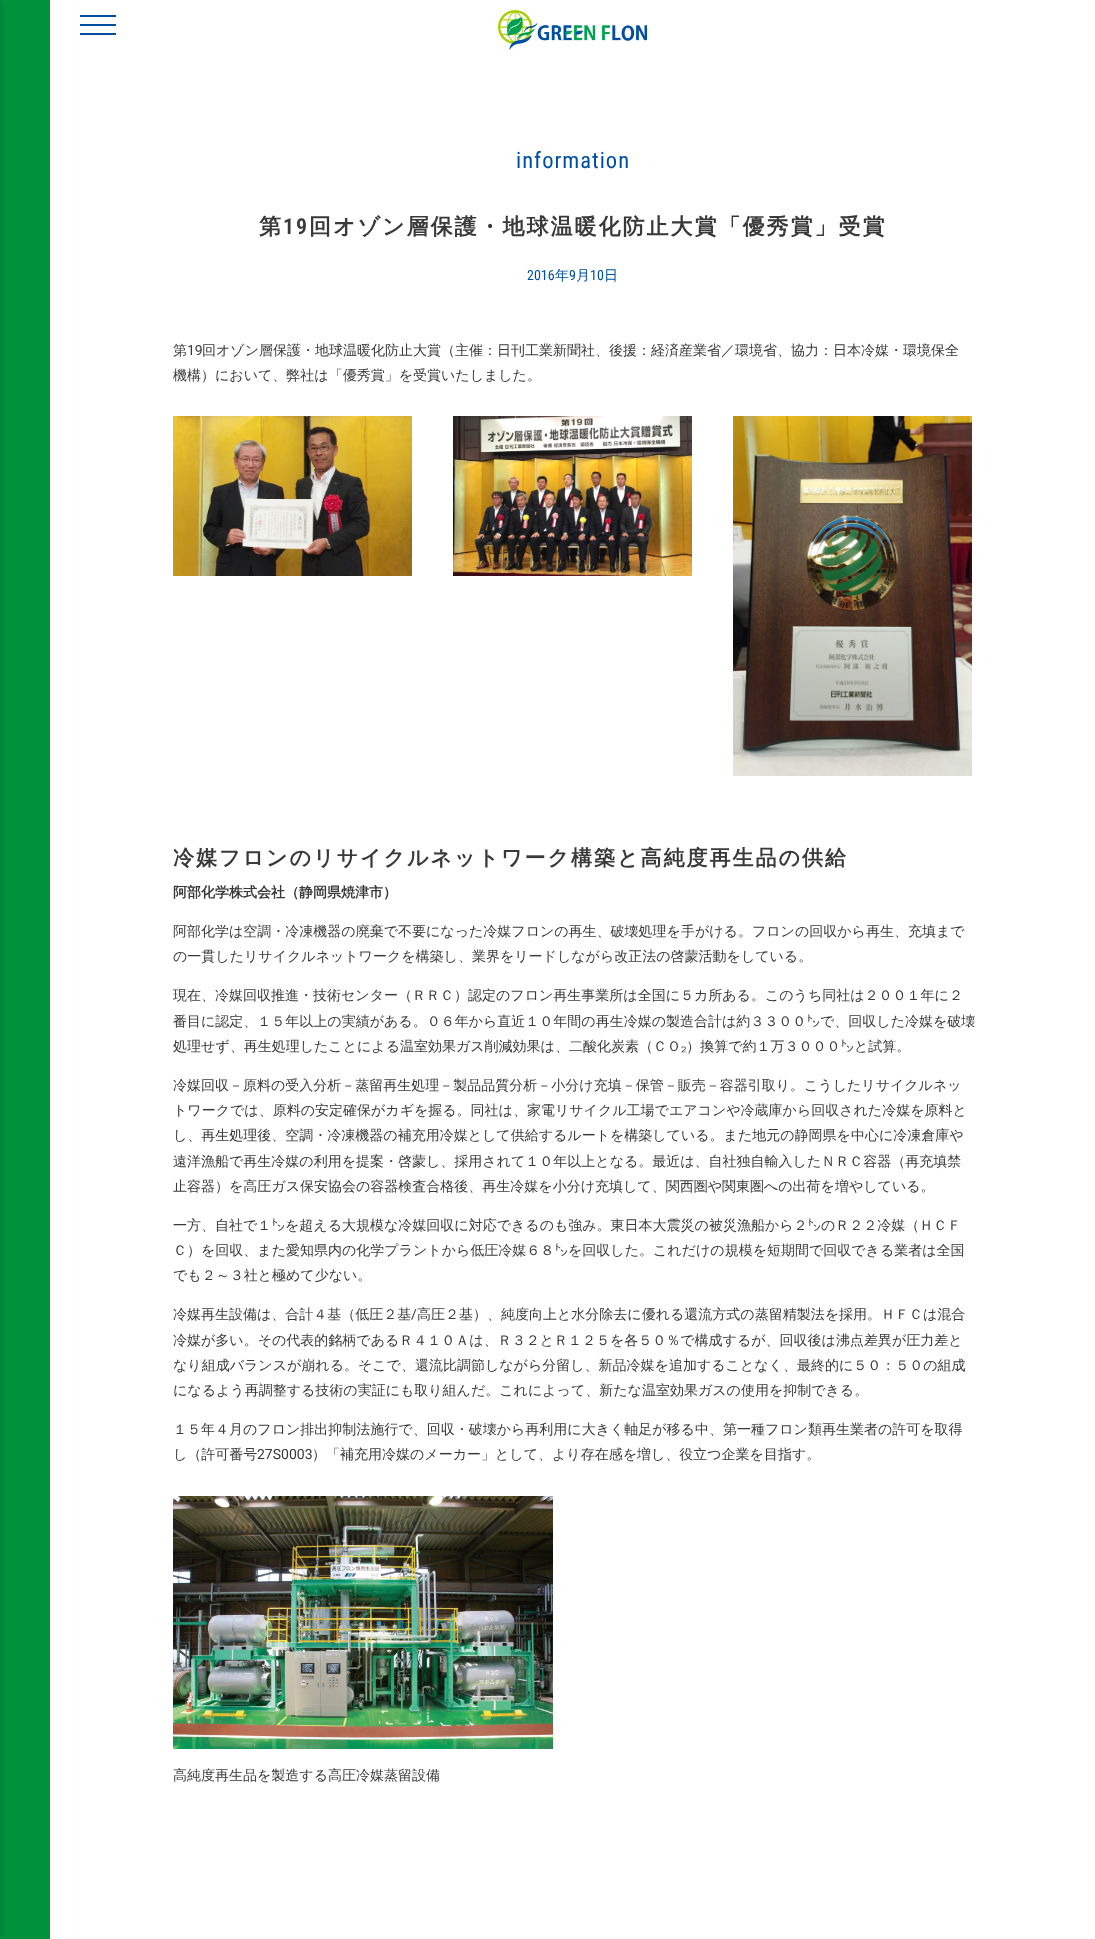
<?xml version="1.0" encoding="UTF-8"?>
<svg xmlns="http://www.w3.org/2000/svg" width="1095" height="1939">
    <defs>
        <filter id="blur1" x="-50%" y="-200%" width="200%" height="500%"><feGaussianBlur stdDeviation="2.5"/></filter>
    </defs>
    <rect width="100%" height="100%" fill="#FFFFFF"/>
    <rect x="0" y="0" width="50" height="1939" fill="#00913D"/>
    <rect x="-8" y="0" width="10" height="1939" fill="#000000" fill-opacity="0.1" filter="url(#blur1)"/>
    <rect x="80" y="15" width="36" height="2" fill="#004EA2"/>
    <rect x="80" y="24" width="36" height="2" fill="#004EA2"/>
    <rect x="80" y="33" width="36" height="2" fill="#004EA2"/>
    <image x="498" y="10" width="149" height="40" href="img_01.png"/>
    <text x="516" y="168" font-family="Roboto Condensed" font-size="22.5" letter-spacing="1" fill="#004EA2">information</text>
    <text x="259" y="234" font-family="WenQuanYi Zen Hei" font-size="22" font-weight="700" letter-spacing="2" fill="#393939">第</text>
    <text x="283" y="234" font-family="Roboto Condensed" font-size="22" font-weight="600" letter-spacing="2" fill="#393939">19</text>
    <text x="309" y="234" font-family="WenQuanYi Zen Hei" font-size="22" font-weight="700" letter-spacing="2" fill="#393939">回オゾン層保護・地球温暖化防止大賞「優秀賞」受賞</text>
    <text x="527" y="280" font-family="Roboto Condensed" font-size="14" fill="#004EA2">2016</text>
    <text x="555" y="280" font-family="WenQuanYi Zen Hei" font-size="14" font-weight="500" fill="#004EA2">年</text>
    <text x="569" y="280" font-family="Roboto Condensed" font-size="14" fill="#004EA2">9</text>
    <text x="576" y="280" font-family="WenQuanYi Zen Hei" font-size="14" font-weight="500" fill="#004EA2">月</text>
    <text x="590" y="280" font-family="Roboto Condensed" font-size="14" fill="#004EA2">10</text>
    <text x="604" y="280" font-family="WenQuanYi Zen Hei" font-size="14" font-weight="500" fill="#004EA2">日</text>
    <text x="173" y="355" font-family="WenQuanYi Zen Hei" font-size="14" font-weight="500" fill="#393939">第</text>
    <text x="187" y="355" font-family="Roboto" font-size="14" fill="#393939">19</text>
    <text x="202" y="355" font-family="WenQuanYi Zen Hei" font-size="14" font-weight="500" fill="#393939">回オゾン層保護・地球温暖化防止大賞（主催：日刊工業新聞社、後援：経済産業省／環境省、協力：日本冷媒・環境保全</text>
    <text x="173" y="380" font-family="WenQuanYi Zen Hei" font-size="14" font-weight="500" fill="#393939">機構）において、弊社は「優秀賞」を受賞いたしました。</text>
    <image x="173" y="416" width="239" height="160" href="img_02.png"/>
    <image x="453" y="416" width="239" height="160" href="img_03.png"/>
    <image x="733" y="416" width="239" height="360" href="img_04.png"/>
    <text x="173" y="865" font-family="WenQuanYi Zen Hei" font-size="21" font-weight="700" letter-spacing="2" fill="#393939">冷媒フロンのリサイクルネットワーク構築と高純度再生品の供給</text>
    <text x="173" y="897" font-family="WenQuanYi Zen Hei" font-size="14" font-weight="700" fill="#393939">阿部化学株式会社（静岡県焼津市）</text>
    <text font-family="WenQuanYi Zen Hei" font-size="14" font-weight="500" fill="#393939">
        <tspan x="173" y="936">阿部化学は空調・冷凍機器の廃棄で不要になった冷媒フロンの再生、破壊処理を手がける。フロンの回収から再生、充填まで</tspan>
        <tspan x="173" y="961">の一貫したリサイクルネットワークを構築し、業界をリードしながら改正法の啓蒙活動をしている。</tspan>
    </text>
    <text font-family="WenQuanYi Zen Hei" font-size="14" font-weight="500" fill="#393939">
        <tspan x="173" y="1000">現在、冷媒回収推進・技術センター（ＲＲＣ）認定のフロン再生事業所は全国に５カ所ある。このうち同社は２００１年に２</tspan>
        <tspan x="173" y="1026">番目に認定、１５年以上の実績がある。０６年から直近１０年間の再生冷媒の製造合計は約３３００</tspan>
    </text>
    <text x="806" y="1026" font-family="IPAPGothic" font-size="14" fill="#393939">㌧</text>
    <text x="820" y="1026" font-family="WenQuanYi Zen Hei" font-size="14" font-weight="500" fill="#393939">で、回収した冷媒を破壊</text>
    <text x="173" y="1051" font-family="WenQuanYi Zen Hei" font-size="14" font-weight="500" fill="#393939">処理せず、再生処理したことによる温室効果ガス削減効果は、二酸化炭素（ＣＯ₂）換算で約１万３０００</text>
    <text x="840" y="1051" font-family="IPAPGothic" font-size="14" fill="#393939">㌧</text>
    <text x="854" y="1051" font-family="WenQuanYi Zen Hei" font-size="14" font-weight="500" fill="#393939">と試算。</text>
    <text font-family="WenQuanYi Zen Hei" font-size="14" font-weight="500" fill="#393939">
        <tspan x="173" y="1090">冷媒回収－原料の受入分析－蒸留再生処理－製品品質分析－小分け充填－保管－販売－容器引取り。こうしたリサイクルネッ</tspan>
        <tspan x="173" y="1115">トワークでは、原料の安定確保がカギを握る。同社は、家電リサイクル工場でエアコンや冷蔵庫から回収された冷媒を原料と</tspan>
        <tspan x="173" y="1140">し、再生処理後、空調・冷凍機器の補充用冷媒として供給するルートを構築している。また地元の静岡県を中心に冷凍倉庫や</tspan>
        <tspan x="173" y="1166">遠洋漁船で再生冷媒の利用を提案・啓蒙し、採用されて１０年以上となる。最近は、自社独自輸入したＮＲＣ容器（再充填禁</tspan>
        <tspan x="173" y="1191">止容器）を高圧ガス保安協会の容器検査合格後、再生冷媒を小分け充填して、関西圏や関東圏への出荷を増やしている。</tspan>
    </text>
    <text x="173" y="1230" font-family="WenQuanYi Zen Hei" font-size="14" font-weight="500" fill="#393939">一方、自社で１</text>
    <text x="271" y="1230" font-family="IPAPGothic" font-size="14" fill="#393939">㌧</text>
    <text x="285" y="1230" font-family="WenQuanYi Zen Hei" font-size="14" font-weight="500" fill="#393939">を超える大規模な冷媒回収に対応できるのも強み。東日本大震災の被災漁船から２</text>
    <text x="807" y="1230" font-family="IPAPGothic" font-size="14" fill="#393939">㌧</text>
    <text x="821" y="1230" font-family="WenQuanYi Zen Hei" font-size="14" font-weight="500" fill="#393939">のＲ２２冷媒（ＨＣＦ</text>
    <text x="173" y="1255" font-family="WenQuanYi Zen Hei" font-size="14" font-weight="500" fill="#393939">Ｃ）を回収、また愛知県内の化学プラントから低圧冷媒６８</text>
    <text x="554" y="1255" font-family="IPAPGothic" font-size="14" fill="#393939">㌧</text>
    <text x="568" y="1255" font-family="WenQuanYi Zen Hei" font-size="14" font-weight="500" fill="#393939">を回収した。これだけの規模を短期間で回収できる業者は全国</text>
    <text x="173" y="1280" font-family="WenQuanYi Zen Hei" font-size="14" font-weight="500" fill="#393939">でも２～３社と極めて少ない。</text>
    <text x="173" y="1319" font-family="WenQuanYi Zen Hei" font-size="14" font-weight="500" fill="#393939">冷媒再生設備は、合計４基（低圧２基</text>
    <text x="411" y="1319" font-family="Roboto" font-size="14" fill="#393939">/</text>
    <text x="417" y="1319" font-family="WenQuanYi Zen Hei" font-size="14" font-weight="500" fill="#393939">高圧２基）、純度向上と水分除去に優れる還流方式の蒸留精製法を採用。ＨＦＣは混合</text>
    <text font-family="WenQuanYi Zen Hei" font-size="14" font-weight="500" fill="#393939">
        <tspan x="173" y="1345">冷媒が多い。その代表的銘柄であるＲ４１０Ａは、Ｒ３２とＲ１２５を各５０％で構成するが、回収後は沸点差異が圧力差と</tspan>
        <tspan x="173" y="1370">なり組成バランスが崩れる。そこで、還流比調節しながら分留し、新品冷媒を追加することなく、最終的に５０：５０の組成</tspan>
        <tspan x="173" y="1395">になるよう再調整する技術の実証にも取り組んだ。これによって、新たな温室効果ガスの使用を抑制できる。</tspan>
    </text>
    <text font-family="WenQuanYi Zen Hei" font-size="14" font-weight="500" fill="#393939">
        <tspan x="173" y="1434">１５年４月のフロン排出抑制法施行で、回収・破壊から再利用に大きく軸足が移る中、第一種フロン類再生業者の許可を取得</tspan>
        <tspan x="173" y="1459">し（許可番号</tspan>
    </text>
    <text x="257" y="1459" font-family="Roboto" font-size="14" fill="#393939">27S0003</text>
    <text x="312" y="1459" font-family="WenQuanYi Zen Hei" font-size="14" font-weight="500" fill="#393939">）「補充用冷媒のメーカー」として、より存在感を増し、役立つ企業を目指す。</text>
    <image x="173" y="1496" width="380" height="253" href="img_05.png"/>
    <text x="173" y="1780" font-family="WenQuanYi Zen Hei" font-size="14" font-weight="500" fill="#393939">高純度再生品を製造する高圧冷媒蒸留設備</text>
</svg>
